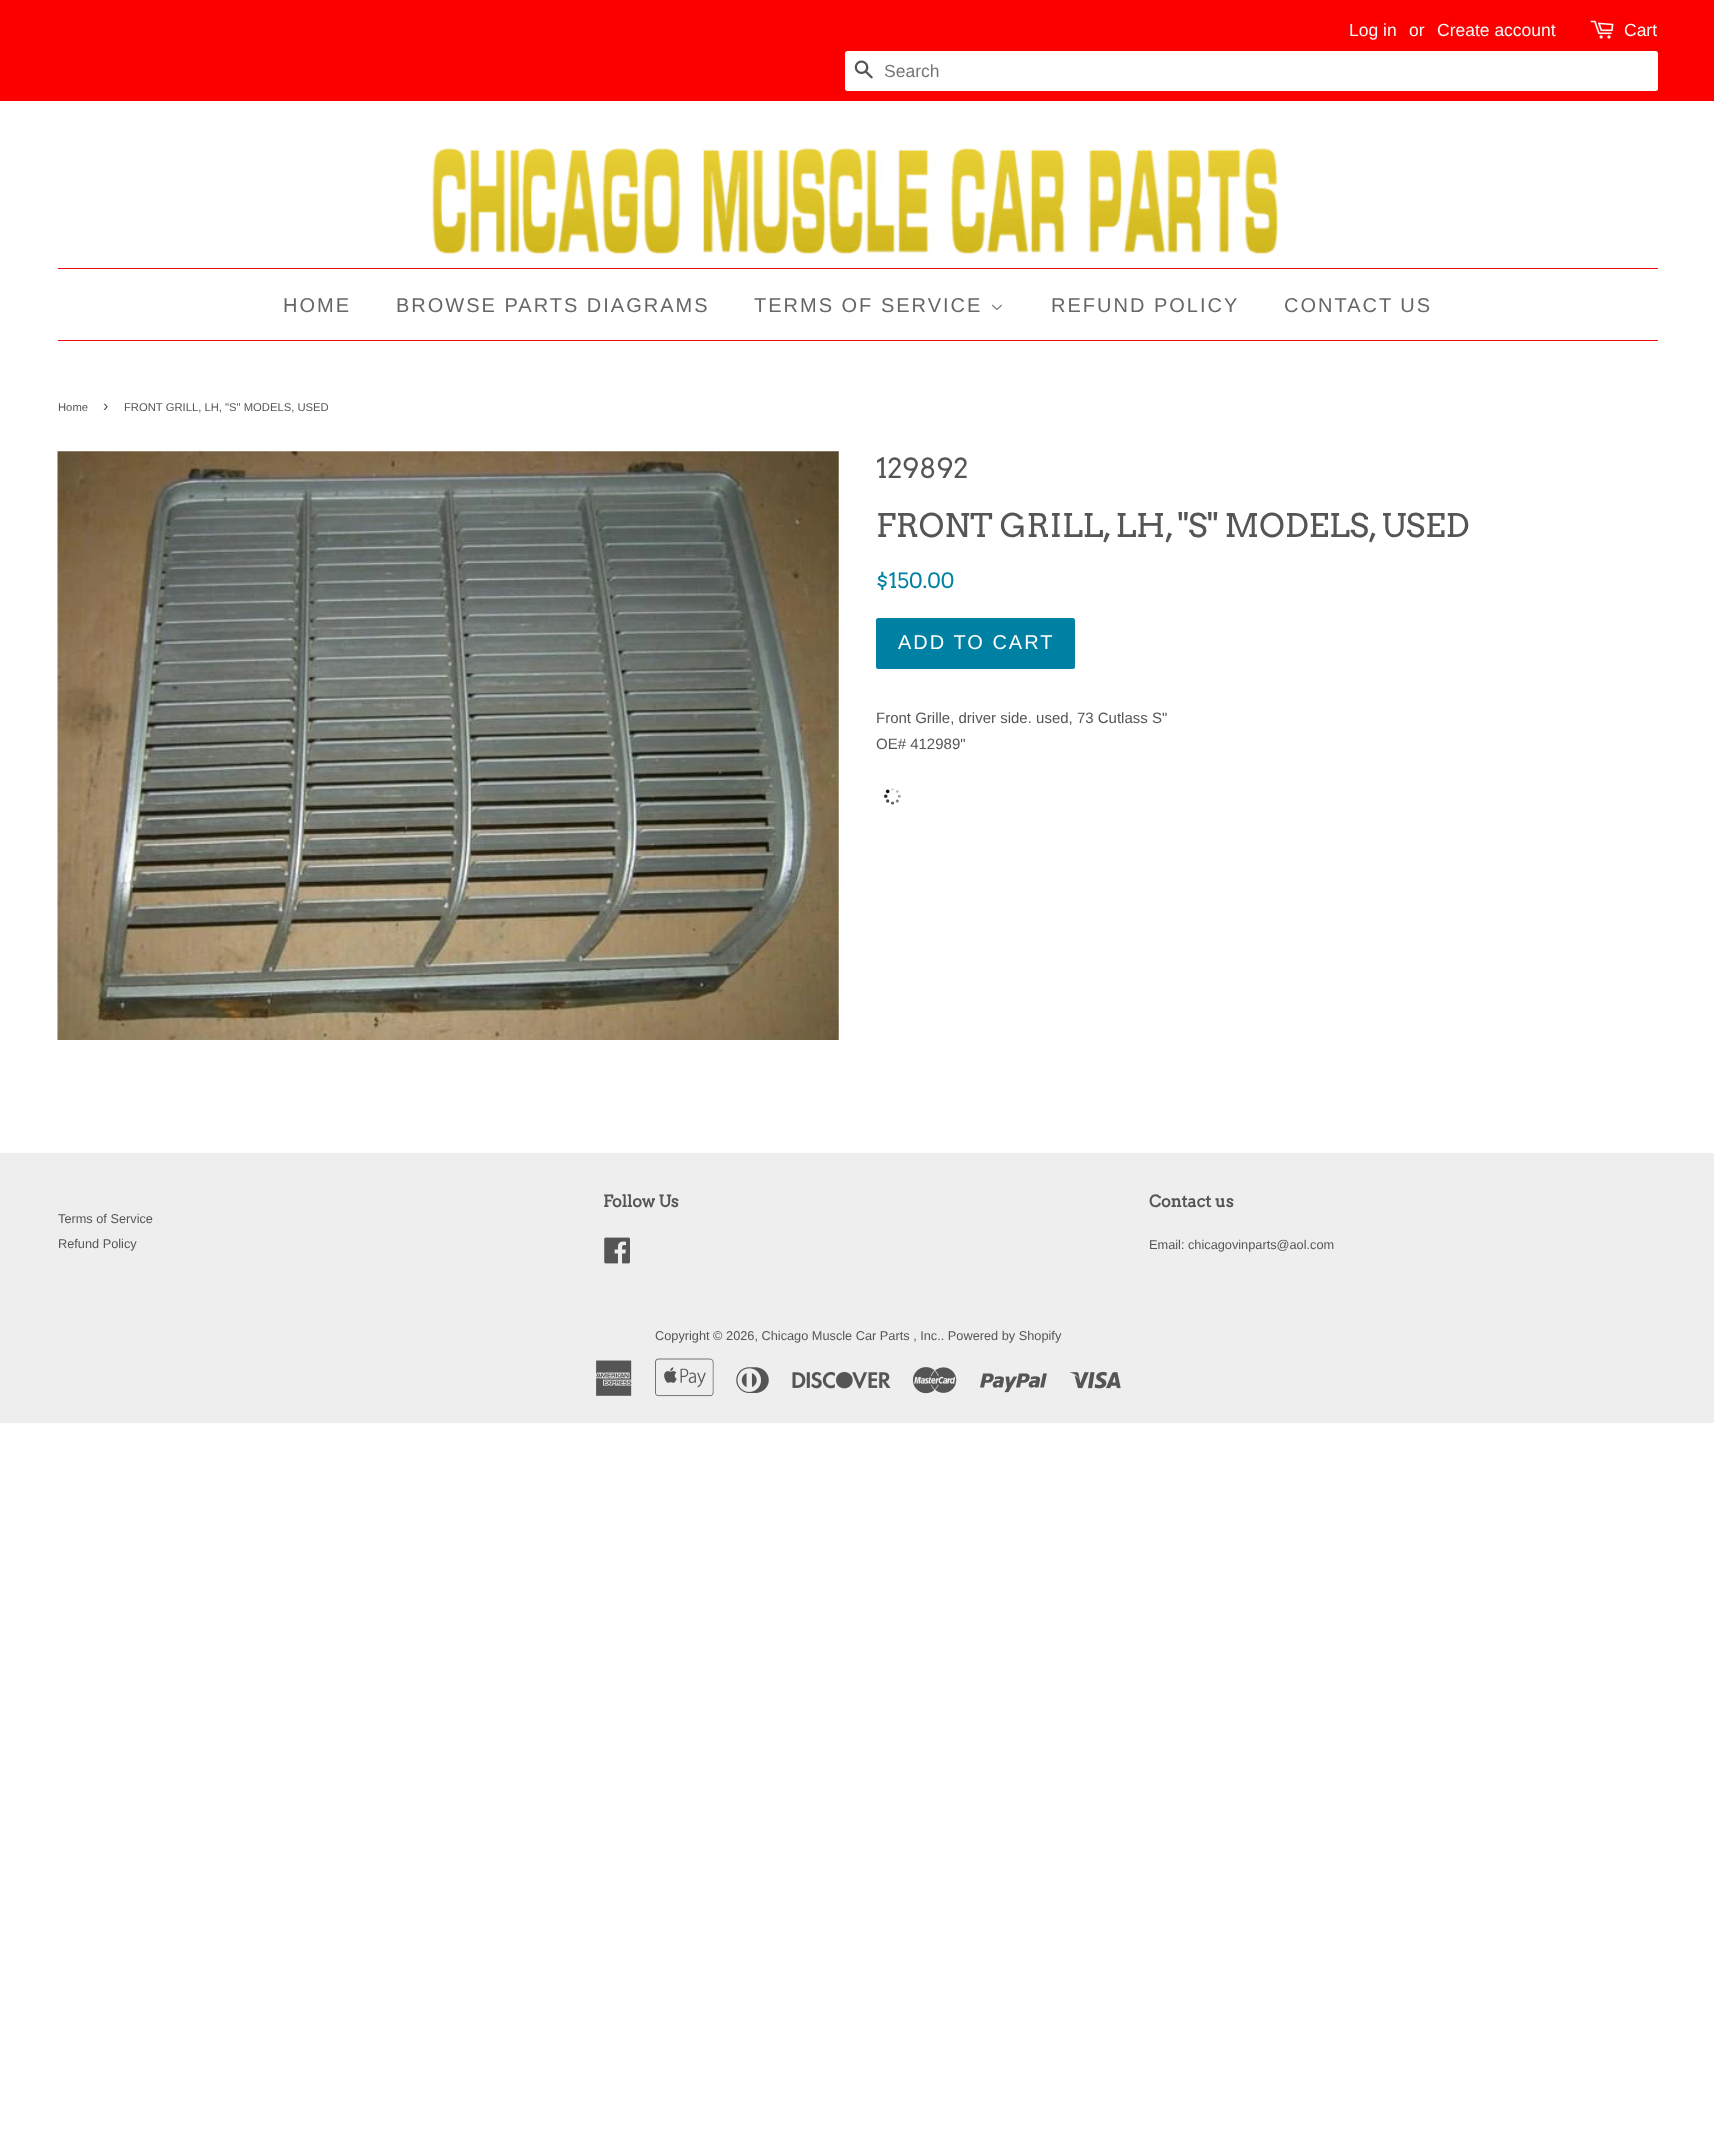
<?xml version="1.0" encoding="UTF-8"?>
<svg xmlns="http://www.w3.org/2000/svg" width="1714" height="2132">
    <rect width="100%" height="100%" fill="#FFFFFF"/>
    <rect x="0" y="0" width="1714" height="101" fill="#FC0000"/>
    <text x="1349" y="36" font-family="Liberation Sans" font-size="17.5" fill="#F7F7F7">Log in</text>
    <text x="1409" y="36" font-family="Liberation Sans" font-size="17.5" fill="#F7F7F7">or</text>
    <text x="1437" y="36" font-family="Liberation Sans" font-size="17.5" fill="#F7F7F7">Create account</text>
    <image x="1590" y="20" width="24" height="19" href="img_01.png"/>
    <text x="1624" y="36" font-family="Liberation Sans" font-size="17.5" fill="#F7F7F7">Cart</text>
    <rect x="845" y="51" width="813" height="40" rx="2.5" fill="#FFFFFF"/>
    <image x="854" y="60" width="19" height="19" href="img_02.png"/>
    <text x="884" y="77" font-family="Liberation Sans" font-size="17.5" fill="#757575">Search</text>
    <image x="432" y="148" width="847" height="107" href="img_03.png"/>
    <rect x="58" y="268" width="1600" height="1" fill="#ED0A0A"/>
    <rect x="58" y="340" width="1600" height="1" fill="#ED0A0A"/>
    <text x="283" y="312" font-family="Liberation Sans" font-size="20" letter-spacing="2" fill="#666666">HOME</text>
    <text x="396" y="312" font-family="Liberation Sans" font-size="20" letter-spacing="2" fill="#666666">BROWSE PARTS DIAGRAMS</text>
    <text x="754" y="312" font-family="Liberation Sans" font-size="20" letter-spacing="2" fill="#666666">TERMS OF SERVICE</text>
    <image x="992" y="304" width="10" height="6" href="img_04.png"/>
    <text x="1051" y="312" font-family="Liberation Sans" font-size="20" letter-spacing="2" fill="#666666">REFUND POLICY</text>
    <text x="1284" y="312" font-family="Liberation Sans" font-size="20" letter-spacing="2" fill="#666666">CONTACT US</text>
    <text x="58" y="411" font-family="Liberation Sans" font-size="11.25" fill="#555555">Home</text>
    <text x="103" y="411" font-family="Liberation Sans" font-size="16" fill="#555555">›</text>
    <text x="124" y="411" font-family="Liberation Sans" font-size="11.25" fill="#555555">FRONT GRILL, LH, "S" MODELS, USED</text>
    <image x="57" y="451" width="782" height="589" href="img_05.png"/>
    <text x="876" y="478" font-family="Arvo" font-size="27.5" fill="#555555">129892</text>
    <text x="876" y="537" font-family="Arvo" font-size="32.5" fill="#555555">FRONT GRILL, LH, "S" MODELS, USED</text>
    <text x="876" y="588" font-family="Arvo" font-size="21" fill="#0081A3">$150.00</text>
    <rect x="876" y="618" width="199" height="51" rx="2.5" fill="#0081A3"/>
    <text x="898" y="649" font-family="Liberation Sans" font-size="20" letter-spacing="2" fill="#FFFFFF">ADD TO CART</text>
    <text font-family="Liberation Sans" font-size="15" fill="#555555">
        <tspan x="876" y="723">Front Grille, driver side. used, 73 Cutlass S"</tspan>
        <tspan x="876" y="749">OE# 412989"</tspan>
    </text>
    <image x="883" y="788" width="18" height="17" href="img_06.png"/>
    <rect x="0" y="1153" width="1714" height="270" fill="#EEEEEE"/>
    <text font-family="Liberation Sans" font-size="12.75" fill="#555555">
        <tspan x="58" y="1223">Terms of Service</tspan>
        <tspan x="58" y="1248">Refund Policy</tspan>
    </text>
    <text x="603" y="1207" font-family="Arvo" font-size="16.25" font-weight="700" fill="#555555">Follow Us</text>
    <image x="604" y="1237" width="26" height="27" href="img_07.png"/>
    <text x="1149" y="1207" font-family="Arvo" font-size="16.25" font-weight="700" fill="#555555">Contact us</text>
    <text x="1149" y="1249" font-family="Liberation Sans" font-size="12.75" fill="#555555">Email: chicagovinparts@aol.com</text>
    <text x="655" y="1340" font-family="Liberation Sans" font-size="12.75" fill="#555555">Copyright © 2026, Chicago Muscle Car Parts , Inc.. Powered by Shopify</text>
    <image x="596" y="1360" width="36" height="36" href="img_08.png"/>
    <image x="655" y="1358" width="59" height="39" href="img_09.png"/>
    <image x="736" y="1367" width="33" height="26" href="img_10.png"/>
    <image x="792" y="1371" width="99" height="18" href="img_11.png"/>
    <image x="912" y="1367" width="45" height="27" href="img_12.png"/>
    <image x="980" y="1373" width="67" height="20" href="img_13.png"/>
    <image x="1070" y="1371" width="51" height="18" href="img_14.png"/>
</svg>
